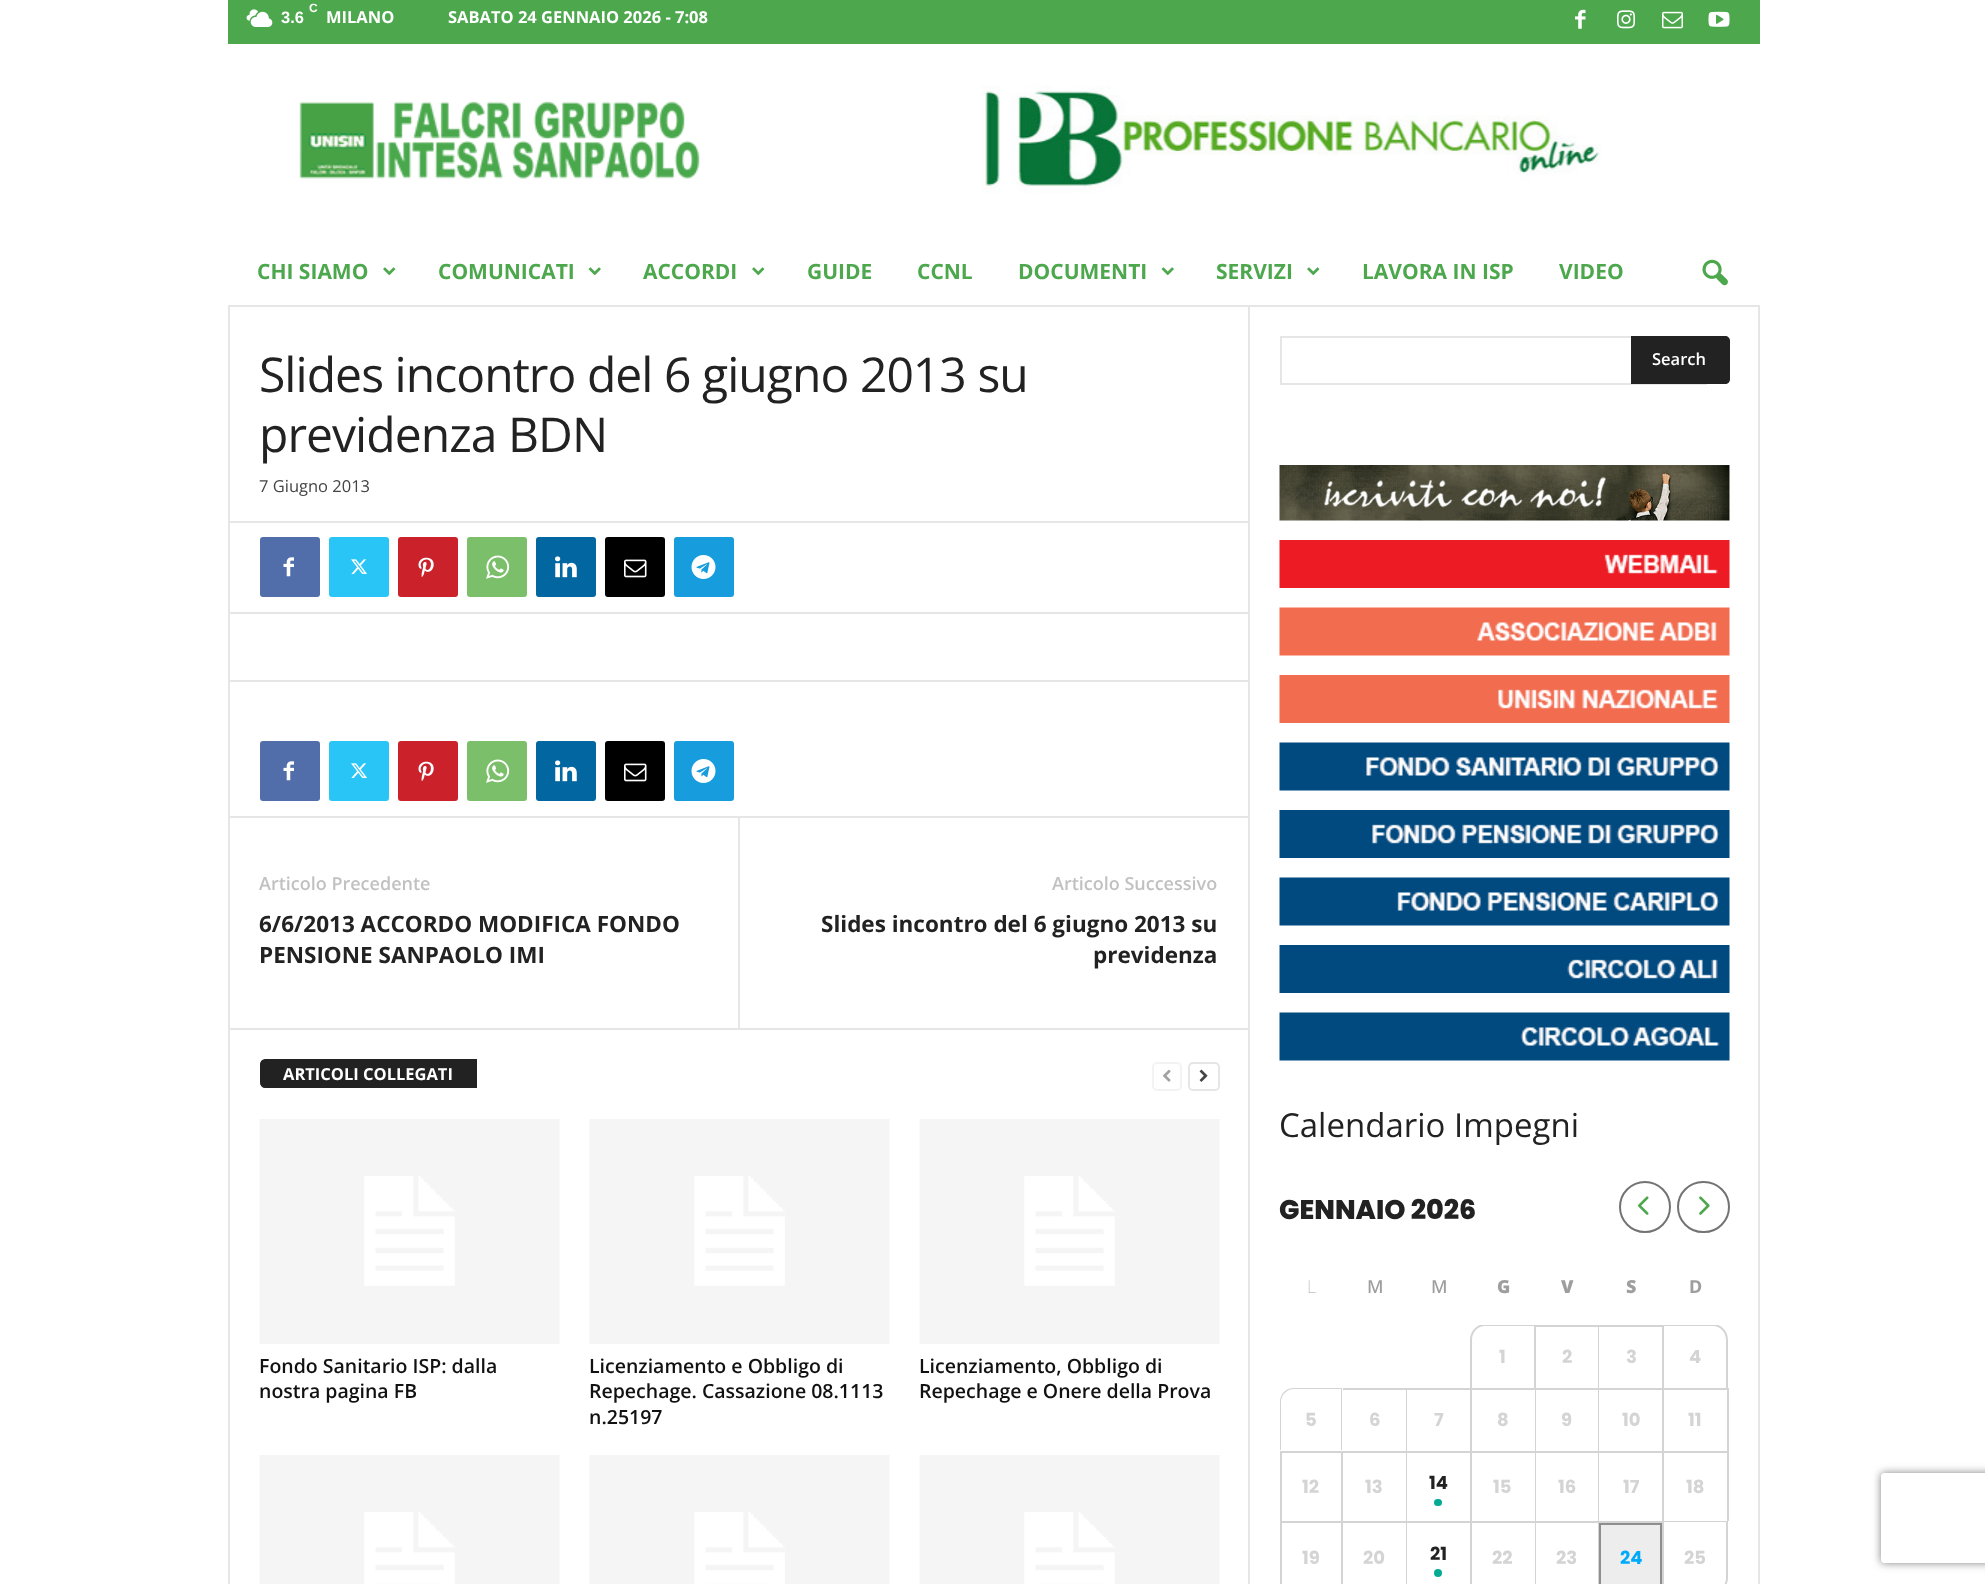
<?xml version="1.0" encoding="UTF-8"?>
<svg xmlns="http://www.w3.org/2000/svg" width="1985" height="1584">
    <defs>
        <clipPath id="clip1"><rect x="1280" y="1325" width="450" height="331"/></clipPath>
        <clipPath id="clip2"><path d="M 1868 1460 H 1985 V 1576 H 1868 Z M 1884 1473 H 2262 C 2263.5 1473 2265 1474.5 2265 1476 V 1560 C 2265 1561.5 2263.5 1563 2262 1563 H 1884 C 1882.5 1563 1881 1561.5 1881 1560 V 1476 C 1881 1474.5 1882.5 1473 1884 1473 Z" clip-rule="evenodd"/></clipPath>
        <filter id="blur1" x="-50%" y="-200%" width="200%" height="500%"><feGaussianBlur stdDeviation="4"/></filter>
    </defs>
    <rect width="100%" height="100%" fill="#FFFFFF"/>
    <rect x="228" y="0" width="1532" height="44" fill="#4CA74D"/>
    <image x="246" y="9" width="27" height="18" href="img_01.png"/>
    <text x="309" y="12" font-family="Liberation Sans" font-size="12" font-weight="700" fill="#FFFFFF">C</text>
    <text x="281" y="23" font-family="Liberation Sans" font-size="16.5" font-weight="700" fill="#FFFFFF">3.6</text>
    <text x="326" y="23" font-family="Open Sans" font-size="16.5" font-weight="700" fill="#FFFFFF">MILANO</text>
    <text x="448" y="23" font-family="Open Sans" font-size="16.5" font-weight="700" fill="#FFFFFF">SABATO 24 GENNAIO 2026 - 7:08</text>
    <image x="1575" y="9" width="11" height="20" href="img_02.png"/>
    <image x="1617" y="10" width="18" height="19" href="img_03.png"/>
    <image x="1662" y="11" width="21" height="18" href="img_04.png"/>
    <image x="1708" y="11" width="22" height="16" href="img_05.png"/>
    <image x="299" y="101" width="401" height="78" href="img_06.png"/>
    <image x="981" y="85" width="620" height="109" href="img_07.png"/>
    <rect x="228" y="305" width="2" height="1279" fill="#E6E6E6"/>
    <rect x="1248" y="305" width="2" height="1279" fill="#E6E6E6"/>
    <rect x="1758" y="305" width="2" height="1279" fill="#E6E6E6"/>
    <rect x="228" y="305" width="1532" height="2" fill="#E6E6E6"/>
    <text x="257" y="279" font-family="Open Sans" font-size="21" font-weight="700" fill="#4CA74D">CHI SIAMO</text>
    <image x="383" y="267" width="13" height="9" href="img_08.png"/>
    <text x="438" y="279" font-family="Open Sans" font-size="21" font-weight="700" fill="#4CA74D">COMUNICATI</text>
    <image x="588" y="267" width="13" height="9" href="img_09.png"/>
    <text x="643" y="279" font-family="Open Sans" font-size="21" font-weight="700" fill="#4CA74D">ACCORDI</text>
    <image x="752" y="267" width="13" height="9" href="img_08.png"/>
    <text x="807" y="279" font-family="Open Sans" font-size="21" font-weight="700" fill="#4CA74D">GUIDE</text>
    <text x="917" y="279" font-family="Open Sans" font-size="21" font-weight="700" fill="#4CA74D">CCNL</text>
    <text x="1018" y="279" font-family="Open Sans" font-size="21" font-weight="700" fill="#4CA74D">DOCUMENTI</text>
    <image x="1161" y="267" width="13" height="9" href="img_09.png"/>
    <text x="1216" y="279" font-family="Open Sans" font-size="21" font-weight="700" fill="#4CA74D">SERVIZI</text>
    <image x="1307" y="267" width="13" height="9" href="img_08.png"/>
    <text x="1362" y="279" font-family="Open Sans" font-size="21" font-weight="700" fill="#4CA74D">LAVORA IN ISP</text>
    <text x="1559" y="279" font-family="Open Sans" font-size="21" font-weight="700" fill="#4CA74D">VIDEO</text>
    <image x="1702" y="259" width="26" height="27" href="img_10.png"/>
    <text font-family="Open Sans" font-size="48" letter-spacing="-0.95" fill="#222222">
        <tspan x="259" y="392">Slides incontro del 6 giugno 2013 su</tspan>
        <tspan x="259" y="452">previdenza BDN</tspan>
    </text>
    <text x="259" y="492" font-family="Open Sans" font-size="16.5" fill="#444444">7 Giugno 2013</text>
    <rect x="230" y="521" width="1018" height="2" fill="#E6E6E6"/>
    <rect x="260" y="537" width="60" height="60" rx="3" fill="#516EAB"/>
    <image x="283" y="557" width="11" height="20" href="img_11.png"/>
    <rect x="329" y="537" width="60" height="60" rx="3" fill="#29C5F6"/>
    <image x="351" y="559" width="16" height="15" href="img_12.png"/>
    <rect x="398" y="537" width="60" height="60" rx="3" fill="#CA212A"/>
    <image x="418" y="557" width="16" height="21" href="img_13.png"/>
    <rect x="467" y="537" width="60" height="60" rx="3" fill="#7BBF6A"/>
    <image x="486" y="555" width="24" height="24" href="img_14.png"/>
    <rect x="536" y="537" width="60" height="60" rx="3" fill="#0266A0"/>
    <image x="555" y="556" width="22" height="22" href="img_15.png"/>
    <rect x="605" y="537" width="60" height="60" rx="3" fill="#000000"/>
    <image x="624" y="559" width="23" height="19" href="img_16.png"/>
    <rect x="674" y="537" width="60" height="60" rx="3" fill="#179CDE"/>
    <image x="691" y="555" width="25" height="24" href="img_17.png"/>
    <rect x="230" y="612" width="1018" height="2" fill="#E6E6E6"/>
    <rect x="230" y="680" width="1018" height="2" fill="#E6E6E6"/>
    <rect x="260" y="741" width="60" height="60" rx="3" fill="#516EAB"/>
    <image x="283" y="761" width="11" height="20" href="img_11.png"/>
    <rect x="329" y="741" width="60" height="60" rx="3" fill="#29C5F6"/>
    <image x="351" y="763" width="16" height="15" href="img_12.png"/>
    <rect x="398" y="741" width="60" height="60" rx="3" fill="#CA212A"/>
    <image x="418" y="761" width="16" height="21" href="img_13.png"/>
    <rect x="467" y="741" width="60" height="60" rx="3" fill="#7BBF6A"/>
    <image x="486" y="759" width="24" height="24" href="img_14.png"/>
    <rect x="536" y="741" width="60" height="60" rx="3" fill="#0266A0"/>
    <image x="555" y="760" width="22" height="22" href="img_15.png"/>
    <rect x="605" y="741" width="60" height="60" rx="3" fill="#000000"/>
    <image x="624" y="763" width="23" height="19" href="img_16.png"/>
    <rect x="674" y="741" width="60" height="60" rx="3" fill="#179CDE"/>
    <image x="691" y="759" width="25" height="24" href="img_17.png"/>
    <rect x="230" y="816" width="1018" height="2" fill="#E6E6E6"/>
    <text x="259" y="890" font-family="Open Sans" font-size="18" font-weight="600" fill="#C1C1C1">Articolo Precedente</text>
    <text font-family="Open Sans" font-size="22.5" font-weight="700" fill="#222222">
        <tspan x="259" y="932">6/6/2013 ACCORDO MODIFICA FONDO</tspan>
        <tspan x="259" y="963">PENSIONE SANPAOLO IMI</tspan>
    </text>
    <rect x="738" y="818" width="2" height="210" fill="#E6E6E6"/>
    <text x="1052" y="890" font-family="Open Sans" font-size="18" font-weight="600" fill="#C1C1C1">Articolo Successivo</text>
    <text x="821" y="932" font-family="Open Sans" font-size="22.5" font-weight="700" fill="#222222">Slides incontro del 6 giugno 2013 su</text>
    <text x="1093" y="963" font-family="Open Sans" font-size="22.5" font-weight="700" fill="#222222">previdenza</text>
    <rect x="230" y="1028" width="1018" height="2" fill="#E6E6E6"/>
    <path d="M 265 1060 H 476 V 1087 H 265 C 263 1087 261 1085 261 1083 V 1064 C 261 1062 263 1060 265 1060 Z" fill="#222222" stroke="#222222" stroke-width="2"/>
    <text x="283" y="1080" font-family="Open Sans" font-size="16.5" font-weight="700" fill="#FFFFFF">ARTICOLI COLLEGATI</text>
    <rect x="1153" y="1063" width="28" height="27" rx="4" fill="none" stroke="#F3F3F3" stroke-width="2"/>
    <image x="1162" y="1069" width="9" height="13" href="img_18.png"/>
    <rect x="1189" y="1063" width="30" height="27" rx="4" fill="none" stroke="#E6E6E6" stroke-width="2"/>
    <image x="1199" y="1069" width="9" height="13" href="img_19.png"/>
    <image x="259" y="1119" width="301" height="225" href="img_20.png"/>
    <text font-family="Open Sans" font-size="19.5" font-weight="600" fill="#111111">
        <tspan x="259" y="1373">Fondo Sanitario ISP: dalla</tspan>
        <tspan x="259" y="1398">nostra pagina FB</tspan>
    </text>
    <image x="589" y="1119" width="301" height="225" href="img_20.png"/>
    <text font-family="Open Sans" font-size="19.5" font-weight="600" fill="#111111">
        <tspan x="589" y="1373">Licenziamento e Obbligo di</tspan>
        <tspan x="589" y="1398">Repechage. Cassazione 08.1113</tspan>
        <tspan x="589" y="1424">n.25197</tspan>
    </text>
    <image x="919" y="1119" width="301" height="225" href="img_20.png"/>
    <text font-family="Open Sans" font-size="19.5" font-weight="600" fill="#111111">
        <tspan x="919" y="1373">Licenziamento, Obbligo di</tspan>
        <tspan x="919" y="1398">Repechage e Onere della Prova</tspan>
    </text>
    <image x="259" y="1455" width="301" height="129" href="img_21.png"/>
    <image x="589" y="1455" width="301" height="129" href="img_21.png"/>
    <image x="919" y="1455" width="301" height="129" href="img_21.png"/>
    <rect x="1280" y="336" width="351" height="2" fill="#E6E6E6"/>
    <rect x="1280" y="383" width="427" height="2" fill="#E6E6E6"/>
    <rect x="1280" y="336" width="2" height="48" fill="#E6E6E6"/>
    <path d="M 1631 336 H 1725 C 1728 336 1730 338 1730 341 V 379 C 1730 382 1728 384 1725 384 H 1631 Z" fill="#222222"/>
    <text x="1652" y="365" font-family="Open Sans" font-size="16.5" font-weight="600" fill="#FFFFFF">Search</text>
    <image x="1279" y="465" width="451" height="56" href="img_22.png"/>
    <image x="1279" y="540" width="451" height="48" href="img_23.png"/>
    <image x="1279" y="607" width="451" height="49" href="img_24.png"/>
    <image x="1279" y="675" width="451" height="48" href="img_25.png"/>
    <image x="1279" y="742" width="451" height="49" href="img_26.png"/>
    <image x="1279" y="810" width="451" height="48" href="img_27.png"/>
    <image x="1279" y="877" width="451" height="49" href="img_28.png"/>
    <image x="1279" y="945" width="451" height="48" href="img_29.png"/>
    <image x="1279" y="1012" width="451" height="49" href="img_30.png"/>
    <text x="1279" y="1137" font-family="Open Sans" font-size="33" fill="#222222">Calendario Impegni</text>
    <text x="1279" y="1219" font-family="Poppins" font-size="27" font-weight="800" fill="#222222">GENNAIO 2026</text>
    <circle cx="1645" cy="1207" r="25" fill="none" stroke="#737373" stroke-width="2"/>
    <image x="1638" y="1196" width="11" height="19" href="img_31.png"/>
    <rect x="1678" y="1182" width="51" height="50" rx="25" fill="none" stroke="#737373" stroke-width="2"/>
    <image x="1699" y="1196" width="11" height="19" href="img_32.png"/>
    <text x="1307" y="1293" font-family="Noto Sans" font-size="18" font-weight="100" fill="#9E9E9E">L</text>
    <text x="1367" y="1293" font-family="Noto Sans" font-size="18" font-weight="500" fill="#9E9E9E">M</text>
    <text x="1431" y="1293" font-family="Noto Sans" font-size="18" font-weight="500" fill="#9E9E9E">M</text>
    <text x="1497" y="1293" font-family="Noto Sans" font-size="18" font-weight="900" fill="#9E9E9E">G</text>
    <text x="1561" y="1293" font-family="Noto Sans" font-size="18" font-weight="900" fill="#9E9E9E">V</text>
    <text x="1626" y="1293" font-family="Noto Sans" font-size="18" font-weight="900" fill="#9E9E9E">S</text>
    <text x="1689" y="1293" font-family="Noto Sans" font-size="18" font-weight="700" fill="#9E9E9E">D</text>
    <g clip-path="url(#clip1)">
        <path d="M 1485 1324 H 1536 V 1388 H 1470 V 1340 C 1470 1331 1477 1324 1485 1324 Z M 1485 1326 H 1534 V 1388 H 1472 V 1340 C 1472 1332 1478 1326 1485 1326 Z" fill="#D4D4D4" fill-rule="evenodd"/>
    </g>
    <text x="1499" y="1363" font-family="Poppins" font-size="18" font-weight="700" fill="#D4D4D4">1</text>
    <rect x="1536" y="1325" width="128" height="2" fill="#D4D4D4"/>
    <rect x="1598" y="1325" width="1" height="63" fill="#D4D4D4"/>
    <text x="1562" y="1363" font-family="Poppins" font-size="18" font-weight="700" fill="#D4D4D4">2</text>
    <rect x="1662" y="1325" width="2" height="63" fill="#D4D4D4"/>
    <text x="1626" y="1363" font-family="Poppins" font-size="18" font-weight="700" fill="#D4D4D4">3</text>
    <g clip-path="url(#clip1)">
        <path d="M 1664 1324 H 1713 C 1721 1324 1728 1331 1728 1340 V 1388 H 1664 Z M 1664 1326 H 1713 C 1720 1326 1726 1332 1726 1340 V 1388 H 1664 Z" fill="#D4D4D4" fill-rule="evenodd"/>
    </g>
    <text x="1689" y="1363" font-family="Poppins" font-size="18" font-weight="700" fill="#D4D4D4">4</text>
    <path d="M 1294 1388 H 1342 V 1450 H 1280 V 1402 C 1280 1394 1286 1388 1294 1388 Z M 1294 1389 H 1341 V 1450 H 1281 V 1402 C 1281 1395 1287 1389 1294 1389 Z" fill="#D4D4D4" fill-rule="evenodd"/>
    <text x="1305" y="1426" font-family="Poppins" font-size="18" font-weight="700" fill="#D4D4D4">5</text>
    <rect x="1343" y="1388" width="385" height="2" fill="#D4D4D4"/>
    <rect x="1406" y="1388" width="1" height="63" fill="#D4D4D4"/>
    <text x="1369" y="1426" font-family="Poppins" font-size="18" font-weight="700" fill="#D4D4D4">6</text>
    <rect x="1470" y="1388" width="2" height="63" fill="#D4D4D4"/>
    <text x="1434" y="1426" font-family="Poppins" font-size="18" font-weight="700" fill="#D4D4D4">7</text>
    <rect x="1535" y="1388" width="1" height="63" fill="#D4D4D4"/>
    <text x="1497" y="1426" font-family="Poppins" font-size="18" font-weight="700" fill="#D4D4D4">8</text>
    <rect x="1598" y="1388" width="1" height="63" fill="#D4D4D4"/>
    <text x="1561" y="1426" font-family="Poppins" font-size="18" font-weight="700" fill="#D4D4D4">9</text>
    <rect x="1662" y="1388" width="2" height="63" fill="#D4D4D4"/>
    <text x="1622" y="1426" font-family="Poppins" font-size="18" font-weight="700" fill="#D4D4D4">10</text>
    <rect x="1727" y="1388" width="2" height="63" fill="#D4D4D4"/>
    <text x="1688" y="1426" font-family="Poppins" font-size="18" font-weight="700" fill="#D4D4D4">11</text>
    <rect x="1280" y="1451" width="448" height="2" fill="#D4D4D4"/>
    <rect x="1341" y="1451" width="2" height="70" fill="#D4D4D4"/>
    <rect x="1280" y="1451" width="2" height="70" fill="#D4D4D4"/>
    <text x="1302" y="1493" font-family="Poppins" font-size="18" font-weight="700" fill="#D4D4D4">12</text>
    <rect x="1406" y="1451" width="1" height="70" fill="#D4D4D4"/>
    <text x="1365" y="1493" font-family="Poppins" font-size="18" font-weight="700" fill="#D4D4D4">13</text>
    <rect x="1470" y="1451" width="2" height="70" fill="#D4D4D4"/>
    <text x="1429" y="1489" font-family="Poppins" font-size="18" font-weight="700" fill="#222222">14</text>
    <rect x="1434" y="1499" width="8" height="7" rx="3.5" fill="#04AA94"/>
    <rect x="1535" y="1451" width="1" height="70" fill="#D4D4D4"/>
    <text x="1493" y="1493" font-family="Poppins" font-size="18" font-weight="700" fill="#D4D4D4">15</text>
    <rect x="1598" y="1451" width="1" height="70" fill="#D4D4D4"/>
    <text x="1558" y="1493" font-family="Poppins" font-size="18" font-weight="700" fill="#D4D4D4">16</text>
    <rect x="1662" y="1451" width="2" height="70" fill="#D4D4D4"/>
    <text x="1623" y="1493" font-family="Poppins" font-size="18" font-weight="700" fill="#D4D4D4">17</text>
    <rect x="1727" y="1451" width="2" height="70" fill="#D4D4D4"/>
    <text x="1686" y="1493" font-family="Poppins" font-size="18" font-weight="700" fill="#D4D4D4">18</text>
    <rect x="1281" y="1522" width="61" height="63" fill="none" stroke="#D4D4D4" stroke-width="2"/>
    <text x="1302" y="1564" font-family="Poppins" font-size="18" font-weight="700" fill="#D4D4D4">19</text>
    <rect x="1343" y="1521" width="321" height="2" fill="#D4D4D4"/>
    <rect x="1406" y="1521" width="1" height="63" fill="#D4D4D4"/>
    <text x="1363" y="1564" font-family="Poppins" font-size="18" font-weight="700" fill="#D4D4D4">20</text>
    <rect x="1470" y="1521" width="2" height="63" fill="#D4D4D4"/>
    <text x="1430" y="1560" font-family="Poppins" font-size="18" font-weight="700" fill="#222222">21</text>
    <circle cx="1438" cy="1573" r="4" fill="#04AA94"/>
    <rect x="1535" y="1521" width="1" height="63" fill="#D4D4D4"/>
    <text x="1492" y="1564" font-family="Poppins" font-size="18" font-weight="700" fill="#D4D4D4">22</text>
    <rect x="1598" y="1521" width="1" height="63" fill="#D4D4D4"/>
    <text x="1556" y="1564" font-family="Poppins" font-size="18" font-weight="700" fill="#D4D4D4">23</text>
    <rect x="1600" y="1524" width="61" height="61" fill="#EDEDED" stroke="#8E8E8E" stroke-width="2"/>
    <rect x="1662" y="1521" width="2" height="63" fill="#D4D4D4"/>
    <text x="1620" y="1564" font-family="Poppins" font-size="18" font-weight="700" fill="#00AAFB">24</text>
    <path d="M 1664 1521 H 1728 V 1578 C 1728 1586 1721 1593 1713 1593 H 1664 Z M 1664 1522 H 1726 V 1578 C 1726 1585 1720 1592 1713 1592 H 1664 Z" fill="#D4D4D4" fill-rule="evenodd"/>
    <text x="1684" y="1564" font-family="Poppins" font-size="18" font-weight="700" fill="#D4D4D4">25</text>
    <g clip-path="url(#clip2)">
        <rect x="1881" y="1473" width="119" height="90" rx="3" fill="#808080" filter="url(#blur1)"/>
    </g>
</svg>
